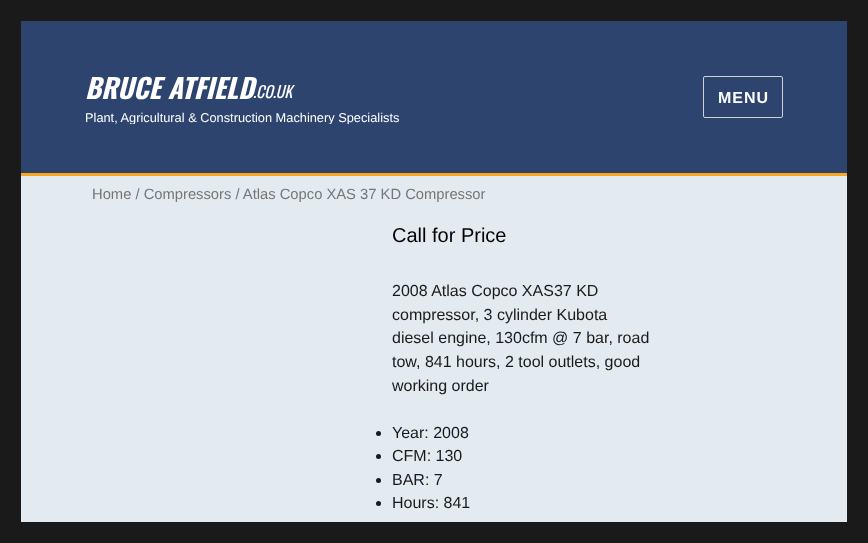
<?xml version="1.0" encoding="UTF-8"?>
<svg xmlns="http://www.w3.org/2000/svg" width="868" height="543">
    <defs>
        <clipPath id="clip1"><rect x="85" y="70" width="314" height="54"/></clipPath>
    </defs>
    <rect width="100%" height="100%" fill="#1A1A1A"/>
    <rect x="21" y="21" width="826" height="152" fill="#2D446F"/>
    <rect x="21" y="173" width="826" height="3" fill="#F9A71C"/>
    <text x="85" y="99" font-family="Oswald" font-size="27.25" font-weight="700" font-style="italic" fill="#FFFFFF">BRUCE ATFIELD</text>
    <text x="253" y="98" font-family="Oswald" font-size="16" font-style="italic" fill="#FFFFFF">.CO.UK</text>
    <g clip-path="url(#clip1)">
        <text x="85" y="122" font-family="Liberation Sans" font-size="12.8" fill="#FFFFFF">Plant, Agricultural &amp; Construction Machinery Specialists</text>
    </g>
    <rect x="703.5" y="76.5" width="79" height="41" rx="1.5" fill="none" stroke="#D1D1D1"/>
    <text x="718" y="103" font-family="Liberation Sans" font-size="16" font-weight="700" letter-spacing="1" fill="#FFFFFF">MENU</text>
    <rect x="21" y="176" width="826" height="346" fill="#E3EBF1"/>
    <text x="92" y="199" font-family="Liberation Sans" font-size="14.75" fill="#767676">Home / Compressors / Atlas Copco XAS 37 KD Compressor</text>
    <text x="392" y="242" font-family="Liberation Sans" font-size="20" fill="#000000">Call for Price</text>
    <text font-family="Liberation Sans" font-size="16" fill="#1A1A1A">
        <tspan x="392" y="296">2008 Atlas Copco XAS37 KD</tspan>
        <tspan x="392" y="320">compressor, 3 cylinder Kubota</tspan>
        <tspan x="392" y="343">diesel engine, 130cfm @ 7 bar, road</tspan>
        <tspan x="392" y="367">tow, 841 hours, 2 tool outlets, good</tspan>
        <tspan x="392" y="391">working order</tspan>
    </text>
    <circle cx="378.5" cy="433.5" r="2.5" fill="#1A1A1A"/>
    <text x="392" y="438" font-family="Liberation Sans" font-size="16" fill="#1A1A1A">Year: 2008</text>
    <circle cx="378.5" cy="456.5" r="2.5" fill="#1A1A1A"/>
    <text x="392" y="461" font-family="Liberation Sans" font-size="16" fill="#1A1A1A">CFM: 130</text>
    <circle cx="378.5" cy="480.5" r="2.5" fill="#1A1A1A"/>
    <text x="392" y="485" font-family="Liberation Sans" font-size="16" fill="#1A1A1A">BAR: 7</text>
    <circle cx="378.5" cy="503.5" r="2.5" fill="#1A1A1A"/>
    <text x="392" y="508" font-family="Liberation Sans" font-size="16" fill="#1A1A1A">Hours: 841</text>
</svg>
